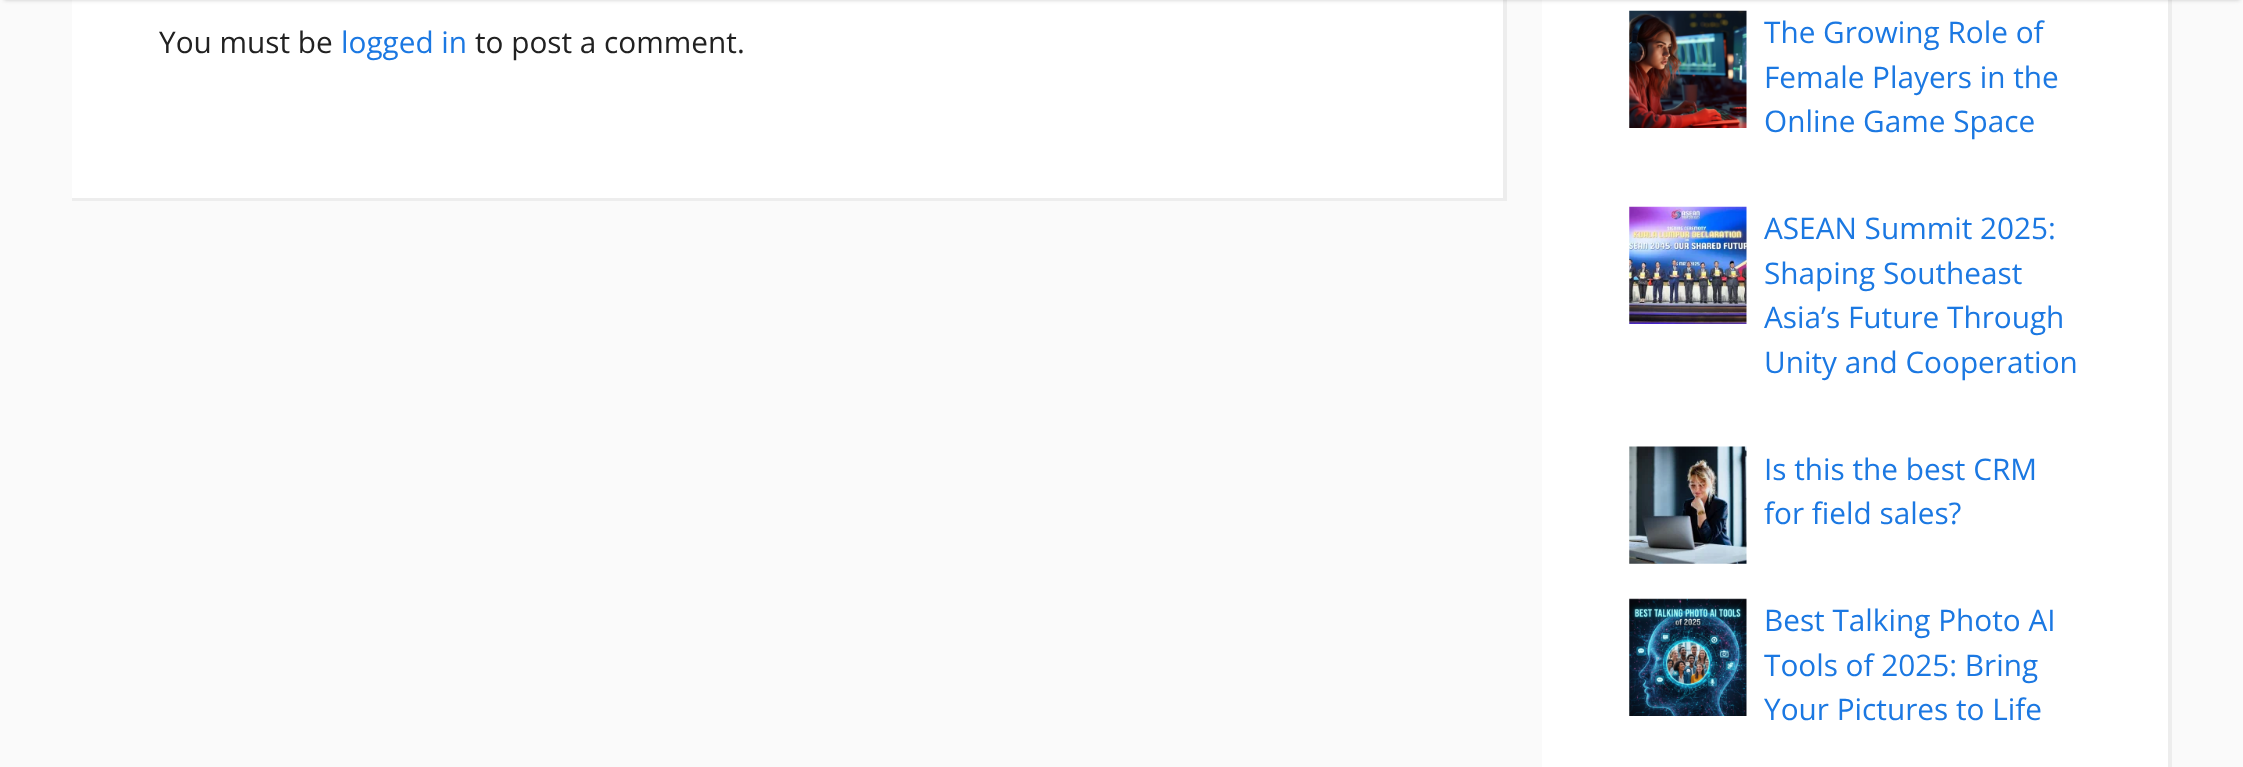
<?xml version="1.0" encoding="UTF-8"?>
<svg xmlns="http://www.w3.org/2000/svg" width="2243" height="767">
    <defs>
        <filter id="blur1" x="-50%" y="-200%" width="200%" height="500%"><feGaussianBlur stdDeviation="2"/></filter>
    </defs>
    <rect width="100%" height="100%" fill="#FAFAFA"/>
    <rect x="72" y="0" width="1435" height="201" fill="#FFFFFF"/>
    <path d="M 1507 -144 V 201 L 1503 198 V -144 Z" fill="#EDEDED"/>
    <rect x="1542" y="0" width="626" height="767" fill="#FFFFFF"/>
    <path d="M 2172 -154 V 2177 L 2168 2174 V -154 Z" fill="#EDEDED"/>
    <rect x="4" y="-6" width="2236" height="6" fill="#000000" fill-opacity="0.2" filter="url(#blur1)"/>
    <path d="M 1507 201 H 72 V 198 H 1503 Z" fill="#000000" fill-opacity="0.07"/>
    <text x="159" y="53" font-family="Open Sans" font-size="29.75" fill="#212121">You must be</text>
    <text x="341" y="53" font-family="Open Sans" font-size="29.75" fill="#1B78E2">logged in</text>
    <text x="475" y="53" font-family="Open Sans" font-size="29.75" fill="#212121">to post a comment.</text>
    <image x="1629" y="10" width="118" height="118" href="img_01.png"/>
    <text font-family="Open Sans" font-size="29.75" fill="#1B78E2">
        <tspan x="1764" y="43">The Growing Role of</tspan>
        <tspan x="1764" y="88">Female Players in the</tspan>
        <tspan x="1764" y="132">Online Game Space</tspan>
    </text>
    <image x="1629" y="206" width="118" height="118" href="img_02.png"/>
    <text font-family="Open Sans" font-size="29.75" fill="#1B78E2">
        <tspan x="1764" y="239">ASEAN Summit 2025:</tspan>
        <tspan x="1764" y="284">Shaping Southeast</tspan>
        <tspan x="1764" y="328">Asia’s Future Through</tspan>
        <tspan x="1764" y="373">Unity and Cooperation</tspan>
    </text>
    <image x="1629" y="446" width="118" height="118" href="img_03.png"/>
    <text font-family="Open Sans" font-size="29.75" fill="#1B78E2">
        <tspan x="1764" y="480">Is this the best CRM</tspan>
        <tspan x="1764" y="524">for field sales?</tspan>
    </text>
    <image x="1629" y="598" width="118" height="118" href="img_04.png"/>
    <text font-family="Open Sans" font-size="29.75" fill="#1B78E2">
        <tspan x="1764" y="631">Best Talking Photo AI</tspan>
        <tspan x="1764" y="676">Tools of 2025: Bring</tspan>
        <tspan x="1764" y="720">Your Pictures to Life</tspan>
    </text>
</svg>
